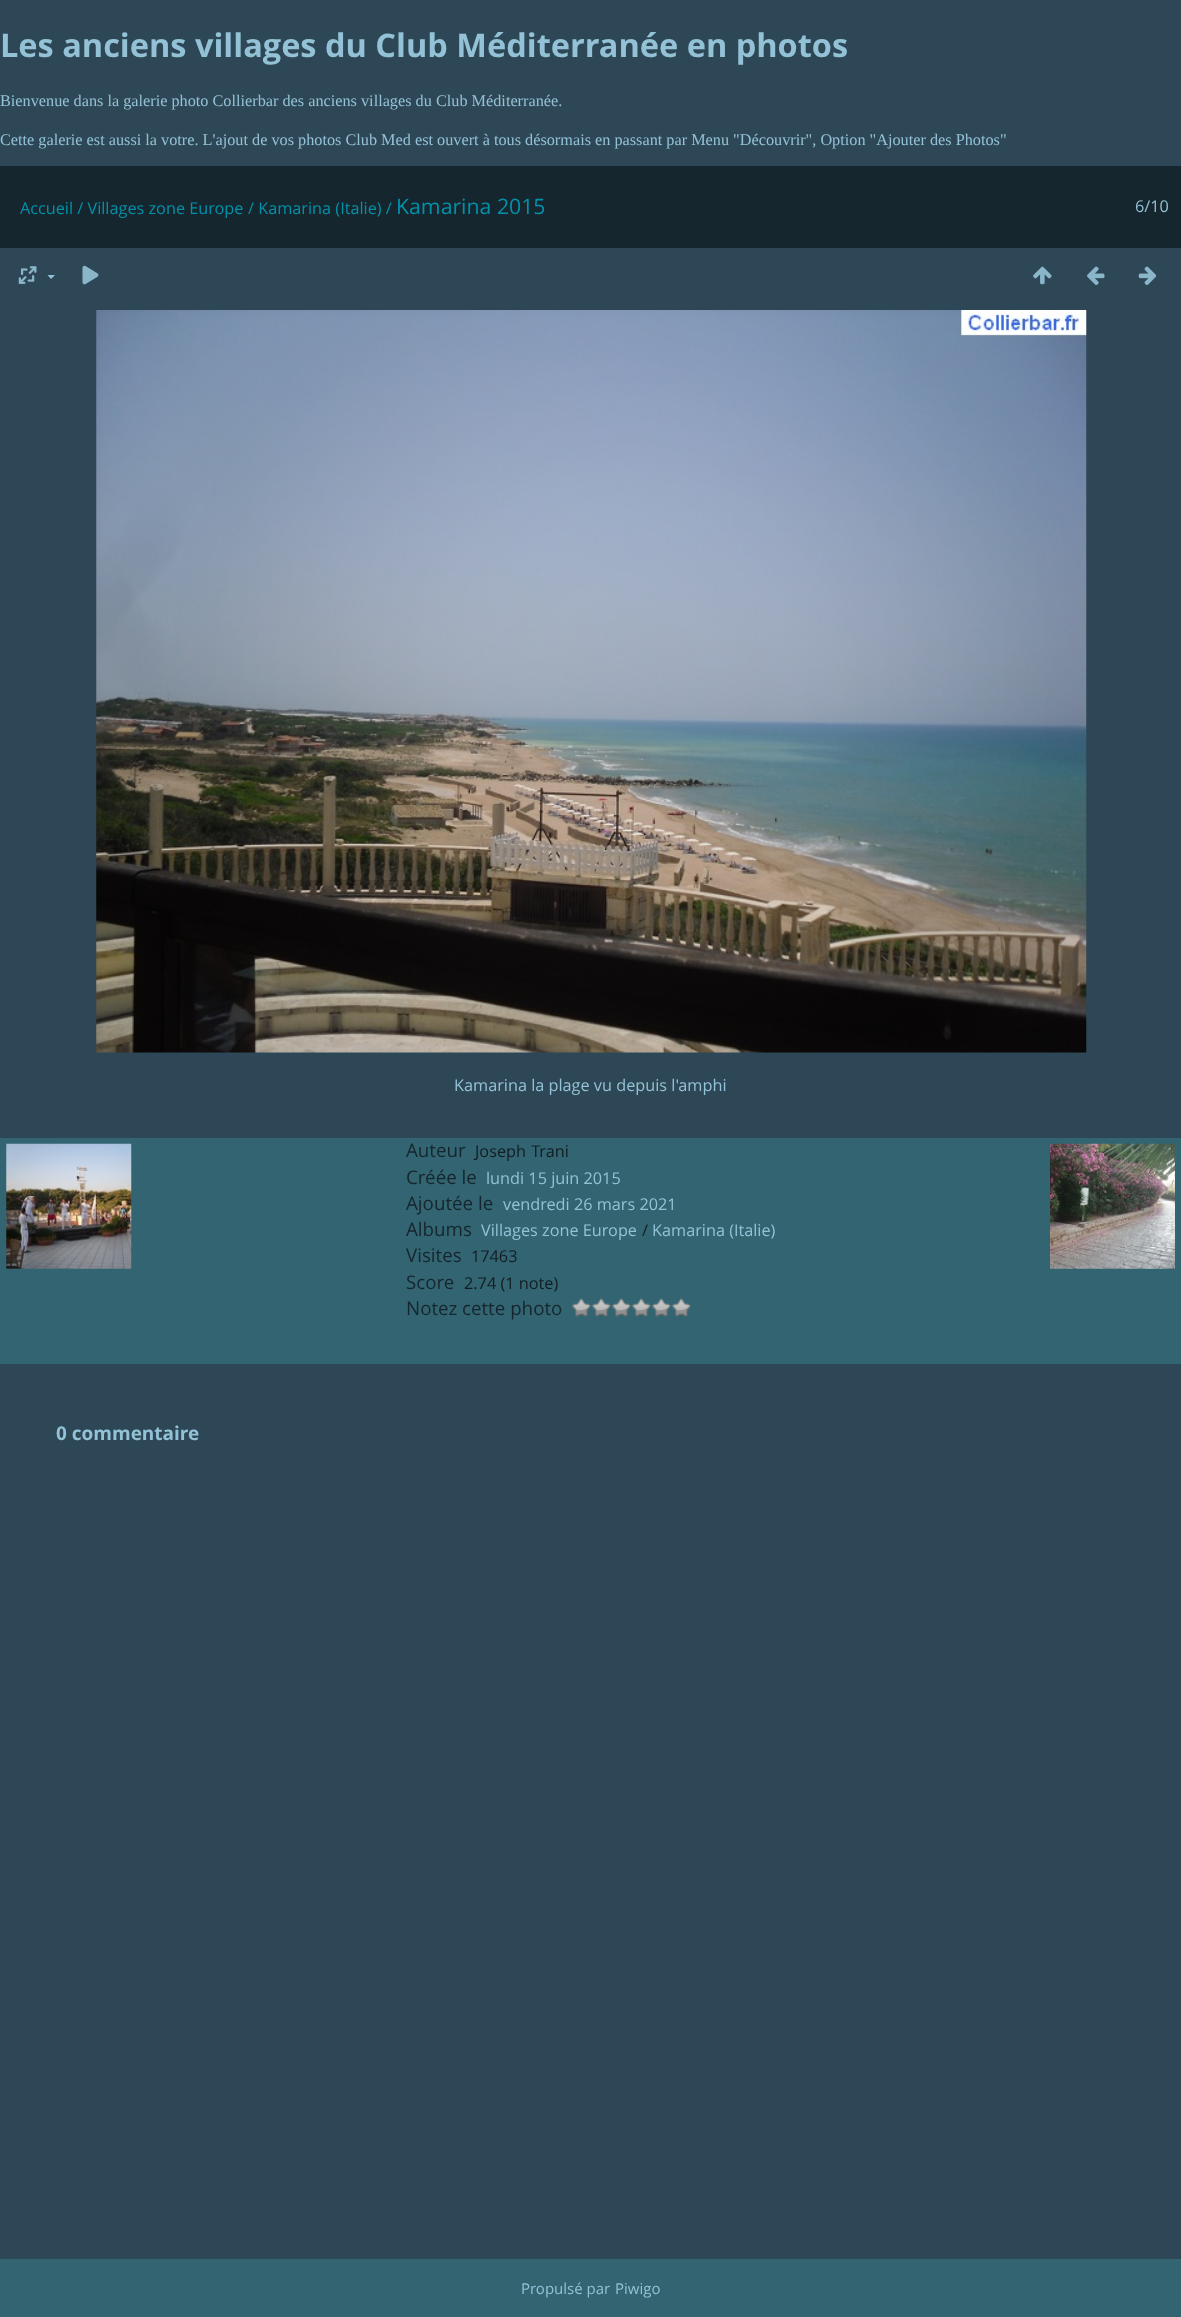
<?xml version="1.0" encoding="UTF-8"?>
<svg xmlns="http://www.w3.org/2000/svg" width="1181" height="2317">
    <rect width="100%" height="100%" fill="#2E4756"/>
    <text x="0" y="57" font-family="Open Sans" font-size="32.5" font-weight="700" fill="#93C2D6">Les anciens villages du Club Méditerranée en photos</text>
    <text x="0" y="106" font-family="Liberation Serif" font-size="16.25" fill="#93C2D6">Bienvenue dans la galerie photo Collierbar des anciens villages du Club Méditerranée.</text>
    <text x="0" y="145" font-family="Liberation Serif" font-size="16.25" fill="#93C2D6">Cette galerie est aussi la votre. L'ajout de vos photos Club Med est ouvert à tous désormais en passant par Menu "Découvrir", Option "Ajouter des Photos"</text>
    <rect x="0" y="166" width="1181" height="82" fill="#16262E"/>
    <text x="20" y="214" font-family="Open Sans" font-size="16.25" fill="#0391AA">Accueil / Villages zone Europe</text>
    <text x="248" y="214" font-family="Open Sans" font-size="16.25" fill="#0391AA">/ Kamarina (Italie) /</text>
    <text x="396" y="214" font-family="Open Sans" font-size="21.25" fill="#0391AA">Kamarina 2015</text>
    <text x="1135" y="212" font-family="Open Sans" font-size="16.25" fill="#93C2D6">6/10</text>
    <image x="18" y="266" width="19" height="18" href="img_01.png"/>
    <path d="M 47.5 275 H 55 L 51 279 Z" fill="#93C2D6"/>
    <image x="82" y="265" width="17" height="20" href="img_02.png"/>
    <image x="1033" y="266" width="19" height="19" href="img_03.png"/>
    <image x="1087" y="266" width="18" height="19" href="img_04.png"/>
    <image x="1138" y="266" width="19" height="19" href="img_05.png"/>
    <image x="96" y="310" width="991" height="743" href="img_06.png"/>
    <text x="454" y="1091" font-family="Open Sans" font-size="16.25" fill="#93C2D6">Kamarina la plage vu depuis l'amphi</text>
    <rect x="0" y="1138" width="1181" height="226" fill="#326471"/>
    <image x="6" y="1143" width="126" height="126" href="img_07.png"/>
    <image x="1050" y="1143" width="125" height="126" href="img_08.png"/>
    <text x="406" y="1157" font-family="Open Sans" font-size="18.75" fill="#16262E">Auteur</text>
    <text x="475" y="1157" word-spacing="1" font-family="Open Sans" font-size="16.25" fill="#131D23">Joseph Trani</text>
    <text x="406" y="1184" font-family="Open Sans" font-size="18.75" fill="#16262E">Créée le</text>
    <text x="486" y="1184" font-family="Open Sans" font-size="16.25" fill="#93C2D6">lundi 15 juin 2015</text>
    <text x="406" y="1210" font-family="Open Sans" font-size="18.75" fill="#16262E">Ajoutée le</text>
    <text x="503" y="1210" font-family="Open Sans" font-size="16.25" fill="#93C2D6">vendredi 26 mars 2021</text>
    <text x="406" y="1236" font-family="Open Sans" font-size="18.75" fill="#16262E">Albums</text>
    <text x="481" y="1236" font-family="Open Sans" font-size="16.25" fill="#93C2D6">Villages zone Europe</text>
    <text x="642" y="1236" font-family="Open Sans" font-size="16.25" fill="#131D23">/</text>
    <text x="652" y="1236" font-family="Open Sans" font-size="16.25" fill="#93C2D6">Kamarina (Italie)</text>
    <text x="406" y="1262" font-family="Open Sans" font-size="18.75" fill="#16262E">Visites</text>
    <text x="471" y="1262" font-family="Open Sans" font-size="16.25" fill="#131D23">17463</text>
    <text x="406" y="1289" font-family="Open Sans" font-size="18.75" fill="#16262E">Score</text>
    <text x="464" y="1289" font-family="Open Sans" font-size="16.25" fill="#131D23">2.74 (1 note)</text>
    <text x="406" y="1315" font-family="Open Sans" font-size="18.75" fill="#16262E">Notez cette photo</text>
    <image x="571" y="1298" width="20" height="19" href="img_09.png"/>
    <image x="591" y="1298" width="20" height="19" href="img_09.png"/>
    <image x="611" y="1298" width="20" height="19" href="img_09.png"/>
    <image x="631" y="1298" width="20" height="19" href="img_09.png"/>
    <image x="651" y="1298" width="20" height="19" href="img_09.png"/>
    <image x="671" y="1298" width="20" height="19" href="img_09.png"/>
    <text x="56" y="1440" font-family="Open Sans" font-size="19" font-weight="700" fill="#93C2D6">0 commentaire</text>
    <rect x="0" y="2259" width="1181" height="58" fill="#326471"/>
    <text x="521" y="2294" font-family="Open Sans" font-size="15" fill="#93C2D6">Propulsé par</text>
    <text x="615" y="2294" font-family="Open Sans" font-size="15" fill="#93C2D6">Piwigo</text>
</svg>
